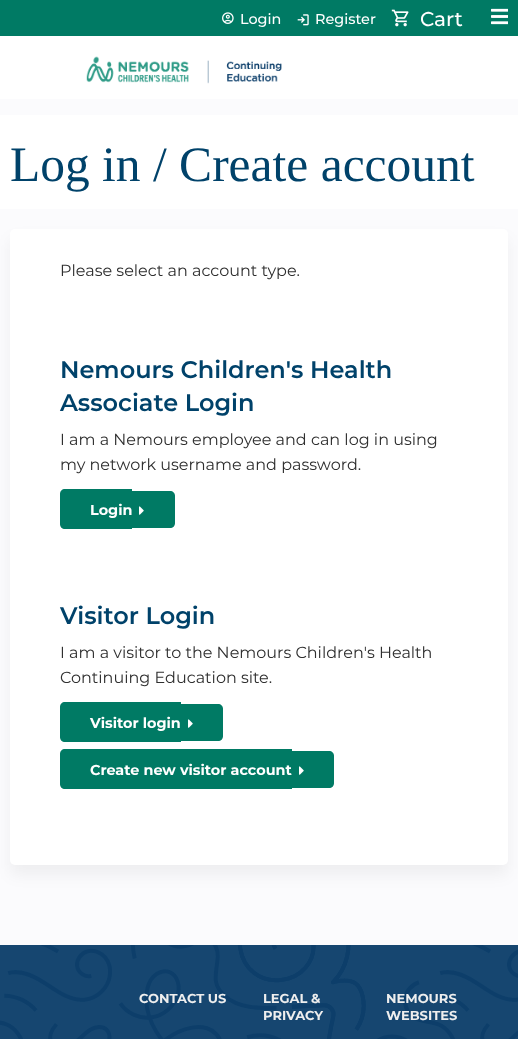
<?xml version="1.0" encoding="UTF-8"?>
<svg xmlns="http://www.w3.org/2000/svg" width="518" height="1039">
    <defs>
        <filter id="blur1" x="-50%" y="-200%" width="200%" height="500%"><feGaussianBlur stdDeviation="7.5"/></filter>
    </defs>
    <rect width="100%" height="100%" fill="#FBFBFD"/>
    <rect x="0" y="36" width="518" height="63" fill="#FFFFFF"/>
    <rect x="0" y="0" width="518" height="36" fill="#007A64"/>
    <image x="222" y="12" width="12" height="12" href="img_01.png"/>
    <text x="240" y="24" font-family="Montserrat" font-size="14.4" font-weight="500" fill="#FFFFFF">Login</text>
    <image x="297" y="14" width="12" height="12" href="img_02.png"/>
    <text x="315" y="24" font-family="Montserrat" font-size="14.4" font-weight="500" fill="#FFFFFF">Register</text>
    <image x="391" y="9" width="18" height="18" href="img_03.png"/>
    <text x="420" y="26" font-family="Montserrat" font-size="20" font-weight="500" fill="#FFFFFF">Cart</text>
    <image x="491" y="8" width="17" height="17" href="img_04.png"/>
    <image x="86" y="56" width="196" height="28" href="img_05.png"/>
    <rect x="0" y="115" width="518" height="94" fill="#FFFFFF"/>
    <text x="10" y="181" font-family="Liberation Serif" font-size="49.5" fill="#00426A">Log in / Create account</text>
    <rect x="10" y="239" width="498" height="636" rx="5" fill="#000000" fill-opacity="0.05" filter="url(#blur1)"/>
    <rect x="10" y="229" width="498" height="636" rx="5" fill="#FFFFFF"/>
    <text x="60" y="276" font-family="Montserrat" font-size="16" fill="#2F2F2F">Please select an account type.</text>
    <text font-family="Montserrat" font-size="24" font-weight="600" fill="#00426A">
        <tspan x="60" y="378">Nemours Children's Health</tspan>
        <tspan x="60" y="411">Associate Login</tspan>
    </text>
    <text font-family="Montserrat" font-size="16" fill="#2F2F2F">
        <tspan x="60" y="445">I am a Nemours employee and can log in using</tspan>
        <tspan x="60" y="470">my network username and password.</tspan>
    </text>
    <path d="M 65 489 H 132 V 529 H 65 C 62 529 60 527 60 524 V 494 C 60 491 62 489 65 489 Z" fill="#007A64"/>
    <text x="90" y="515" font-family="Montserrat" font-size="14.4" font-weight="700" fill="#FFFFFF">Login</text>
    <path d="M 132 491 H 170 C 173 491 175 493 175 496 V 523 C 175 526 173 528 170 528 H 132 Z" fill="#007A64"/>
    <image x="139" y="506" width="5" height="9" href="img_06.png"/>
    <text x="60" y="624" font-family="Montserrat" font-size="24" font-weight="600" fill="#00426A">Visitor Login</text>
    <text font-family="Montserrat" font-size="16" fill="#2F2F2F">
        <tspan x="60" y="658">I am a visitor to the Nemours Children's Health</tspan>
        <tspan x="60" y="683">Continuing Education site.</tspan>
    </text>
    <path d="M 65 702 H 181 V 742 H 65 C 62 742 60 740 60 737 V 707 C 60 704 62 702 65 702 Z" fill="#007A64"/>
    <text x="90" y="728" font-family="Montserrat" font-size="14.4" font-weight="700" fill="#FFFFFF">Visitor login</text>
    <path d="M 181 704 H 218 C 221 704 223 706 223 709 V 736 C 223 739 221 741 218 741 H 181 Z" fill="#007A64"/>
    <image x="188" y="719" width="5" height="9" href="img_06.png"/>
    <path d="M 65 749 H 292 V 789 H 65 C 62 789 60 787 60 784 V 754 C 60 751 62 749 65 749 Z" fill="#007A64"/>
    <text x="90" y="775" font-family="Montserrat" font-size="14.4" font-weight="700" fill="#FFFFFF">Create new visitor account</text>
    <path d="M 292 751 H 329 C 332 751 334 753 334 756 V 783 C 334 786 332 788 329 788 H 292 Z" fill="#007A64"/>
    <image x="299" y="766" width="5" height="9" href="img_06.png"/>
    <image x="0" y="945" width="518" height="94" href="img_07.png"/>
    <text x="139" y="1003" font-family="Montserrat" font-size="13" font-weight="700" fill="#EEEEEE">CONTACT US</text>
    <text font-family="Montserrat" font-size="13" font-weight="700" fill="#EEEEEE">
        <tspan x="263" y="1003">LEGAL &amp;</tspan>
        <tspan x="263" y="1020">PRIVACY</tspan>
    </text>
    <text font-family="Montserrat" font-size="13" font-weight="700" fill="#EEEEEE">
        <tspan x="386" y="1003">NEMOURS</tspan>
        <tspan x="386" y="1020">WEBSITES</tspan>
    </text>
</svg>
